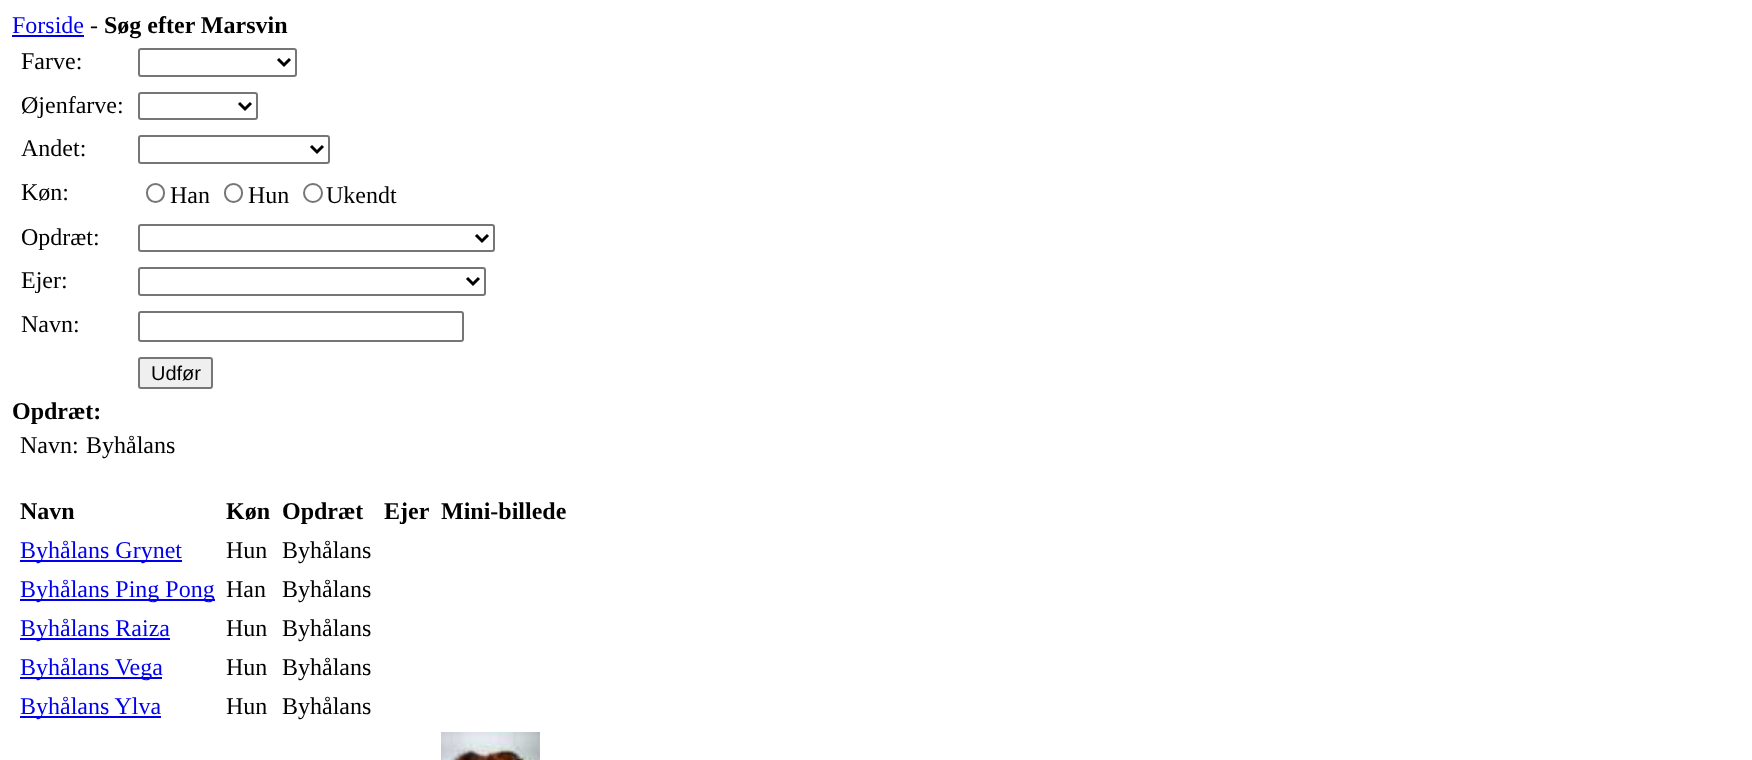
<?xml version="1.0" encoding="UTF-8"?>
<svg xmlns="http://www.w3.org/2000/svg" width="1752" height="760">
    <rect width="100%" height="100%" fill="#FFFFFF"/>
    <text x="12" y="33" font-family="Liberation Serif" font-size="24" fill="#0000EE">Forside</text>
    <rect x="12" y="35" width="72" height="2" fill="#0000EE"/>
    <text x="90" y="33" font-family="Liberation Serif" font-size="24" fill="#000000">-</text>
    <text x="104" y="33" font-family="Liberation Serif" font-size="24" font-weight="700" fill="#000000">Søg efter Marsvin</text>
    <text x="21" y="69" font-family="Liberation Serif" font-size="24" fill="#000000">Farve:</text>
    <rect x="139" y="49" width="157" height="27" rx="2" fill="none" stroke="#767676" stroke-width="2"/>
    <path d="M 278 59 L 284 65 L 290 59" fill="none" stroke="#000000" stroke-width="3"/>
    <text x="21" y="113" font-family="Liberation Serif" font-size="24" fill="#000000">Øjenfarve:</text>
    <rect x="139" y="93" width="118" height="26" rx="2" fill="none" stroke="#767676" stroke-width="2"/>
    <path d="M 239 103 L 245 109 L 251 103" fill="none" stroke="#000000" stroke-width="3"/>
    <text x="21" y="156" font-family="Liberation Serif" font-size="24" fill="#000000">Andet:</text>
    <rect x="139" y="136" width="190" height="27" rx="2" fill="none" stroke="#767676" stroke-width="2"/>
    <path d="M 311 146 L 317 152 L 323 146" fill="none" stroke="#000000" stroke-width="3"/>
    <text x="21" y="200" font-family="Liberation Serif" font-size="24" fill="#000000">Køn:</text>
    <rect x="147" y="184" width="17" height="18" rx="8.5" fill="none" stroke="#767676" stroke-width="2"/>
    <text x="170" y="203" font-family="Liberation Serif" font-size="24" fill="#000000">Han</text>
    <rect x="225" y="184" width="17" height="18" rx="8.5" fill="none" stroke="#767676" stroke-width="2"/>
    <text x="248" y="203" font-family="Liberation Serif" font-size="24" fill="#000000">Hun</text>
    <circle cx="313" cy="193" r="9" fill="none" stroke="#767676" stroke-width="2"/>
    <text x="326" y="203" font-family="Liberation Serif" font-size="24" fill="#000000">Ukendt</text>
    <text x="21" y="245" font-family="Liberation Serif" font-size="24" fill="#000000">Opdræt:</text>
    <rect x="139" y="225" width="355" height="26" rx="2" fill="none" stroke="#767676" stroke-width="2"/>
    <path d="M 476 235 L 482 241 L 488 235" fill="none" stroke="#000000" stroke-width="3"/>
    <text x="21" y="288" font-family="Liberation Serif" font-size="24" fill="#000000">Ejer:</text>
    <rect x="139" y="268" width="346" height="27" rx="2" fill="none" stroke="#767676" stroke-width="2"/>
    <path d="M 467 278 L 473 284 L 479 278" fill="none" stroke="#000000" stroke-width="3"/>
    <text x="21" y="332" font-family="Liberation Serif" font-size="24" fill="#000000">Navn:</text>
    <rect x="139" y="312" width="324" height="29" rx="2" fill="none" stroke="#767676" stroke-width="2"/>
    <rect x="139" y="358" width="73" height="30" rx="2" fill="#EFEFEF" stroke="#767676" stroke-width="2"/>
    <text x="151" y="380" font-family="Liberation Sans" font-size="20" fill="#000000">Udfør</text>
    <text x="12" y="419" font-family="Liberation Serif" font-size="24" font-weight="700" fill="#000000">Opdræt:</text>
    <text x="20" y="453" font-family="Liberation Serif" font-size="24" fill="#000000">Navn:</text>
    <text x="86" y="453" font-family="Liberation Serif" font-size="24" fill="#000000">Byhålans</text>
    <text x="20" y="519" font-family="Liberation Serif" font-size="24" font-weight="700" fill="#000000">Navn</text>
    <text x="226" y="519" font-family="Liberation Serif" font-size="24" font-weight="700" fill="#000000">Køn</text>
    <text x="282" y="519" font-family="Liberation Serif" font-size="24" font-weight="700" fill="#000000">Opdræt</text>
    <text x="384" y="519" font-family="Liberation Serif" font-size="24" font-weight="700" fill="#000000">Ejer</text>
    <text x="441" y="519" font-family="Liberation Serif" font-size="24" font-weight="700" fill="#000000">Mini-billede</text>
    <rect x="20" y="560" width="162" height="2" fill="#0000EE"/>
    <text x="20" y="558" font-family="Liberation Serif" font-size="24" fill="#0000EE">Byhålans Grynet</text>
    <text x="226" y="558" font-family="Liberation Serif" font-size="24" fill="#000000">Hun</text>
    <text x="282" y="558" font-family="Liberation Serif" font-size="24" fill="#000000">Byhålans</text>
    <rect x="20" y="599" width="195" height="2" fill="#0000EE"/>
    <text x="20" y="597" font-family="Liberation Serif" font-size="24" fill="#0000EE">Byhålans Ping Pong</text>
    <text x="226" y="597" font-family="Liberation Serif" font-size="24" fill="#000000">Han</text>
    <text x="282" y="597" font-family="Liberation Serif" font-size="24" fill="#000000">Byhålans</text>
    <rect x="20" y="638" width="150" height="2" fill="#0000EE"/>
    <text x="20" y="636" font-family="Liberation Serif" font-size="24" fill="#0000EE">Byhålans Raiza</text>
    <text x="226" y="636" font-family="Liberation Serif" font-size="24" fill="#000000">Hun</text>
    <text x="282" y="636" font-family="Liberation Serif" font-size="24" fill="#000000">Byhålans</text>
    <rect x="20" y="677" width="142" height="2" fill="#0000EE"/>
    <text x="20" y="675" font-family="Liberation Serif" font-size="24" fill="#0000EE">Byhålans Vega</text>
    <text x="226" y="675" font-family="Liberation Serif" font-size="24" fill="#000000">Hun</text>
    <text x="282" y="675" font-family="Liberation Serif" font-size="24" fill="#000000">Byhålans</text>
    <rect x="20" y="716" width="141" height="2" fill="#0000EE"/>
    <text x="20" y="714" font-family="Liberation Serif" font-size="24" fill="#0000EE">Byhålans Ylva</text>
    <text x="226" y="714" font-family="Liberation Serif" font-size="24" fill="#000000">Hun</text>
    <text x="282" y="714" font-family="Liberation Serif" font-size="24" fill="#000000">Byhålans</text>
    <image x="441" y="732" width="99" height="28" href="img_01.png"/>
</svg>
